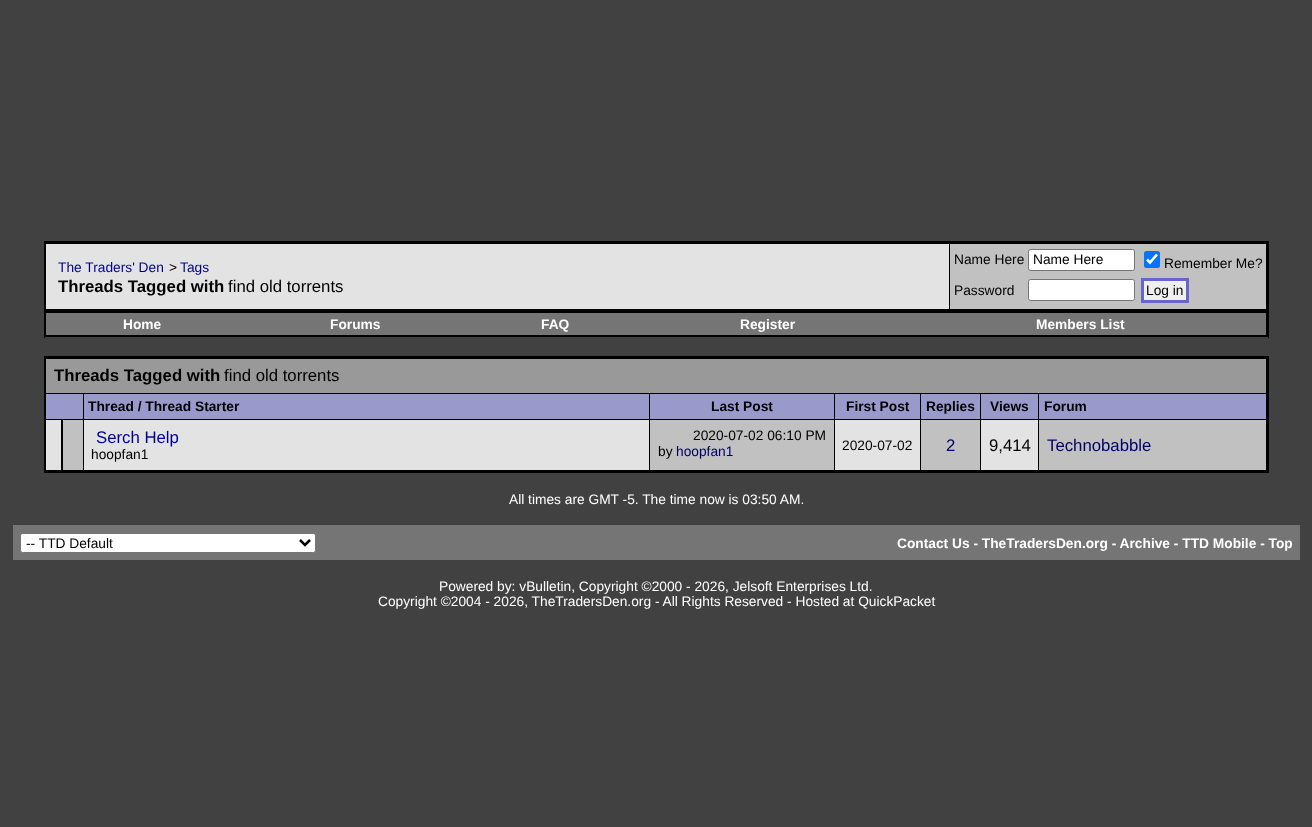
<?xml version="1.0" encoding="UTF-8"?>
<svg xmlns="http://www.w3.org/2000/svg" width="1312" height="827">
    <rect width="100%" height="100%" fill="#414141"/>
    <rect x="44" y="241" width="1225" height="70" fill="#000000"/>
    <rect x="46" y="244" width="903" height="65" fill="#E3E3E3"/>
    <text x="58" y="272" font-family="Liberation Sans" font-size="13.75" fill="#000099">The Traders' Den</text>
    <text x="169" y="272" font-family="Liberation Sans" font-size="13.75" fill="#000000">&gt;</text>
    <text x="180" y="272" font-family="Liberation Sans" font-size="13.75" fill="#000099">Tags</text>
    <text x="58" y="292" font-family="Liberation Sans" font-size="16.75" font-weight="700" fill="#000000">Threads Tagged with</text>
    <text x="228" y="292" font-family="Liberation Sans" font-size="16.75" fill="#000000">find old torrents</text>
    <rect x="950" y="244" width="316" height="65" fill="#C1C1C1"/>
    <text x="954" y="264" font-family="Liberation Sans" font-size="13.75" fill="#000000">Name Here</text>
    <rect x="1028.5" y="249.5" width="106" height="21" rx="2" fill="#FFFFFF" stroke="#767676"/>
    <text x="1033" y="264" font-family="Liberation Sans" font-size="13.75" fill="#000000">Name Here</text>
    <rect x="1144" y="251" width="16" height="17" rx="2.5" fill="#0075FF"/>
    <path d="M 1147 259.5 L 1150 262.5 L 1157 254.5" fill="none" stroke="#FFFFFF" stroke-width="2.6"/>
    <text x="1164" y="268" font-family="Liberation Sans" font-size="13.75" fill="#000000">Remember Me?</text>
    <text x="954" y="295" font-family="Liberation Sans" font-size="13.75" fill="#000000">Password</text>
    <rect x="1028.5" y="279.5" width="106" height="21" rx="2" fill="#FFFFFF" stroke="#767676"/>
    <rect x="1142.5" y="279.5" width="45" height="22" fill="#EFEFEF" stroke="#6666CC" stroke-width="3"/>
    <text x="1146" y="295" font-family="Liberation Sans" font-size="13.75" fill="#000000">Log in</text>
    <rect x="45" y="311" width="1223" height="25" fill="#000000"/>
    <rect x="1268" y="311" width="1" height="27" fill="#000000"/>
    <rect x="44" y="336" width="1225" height="1" fill="#000000"/>
    <rect x="44" y="311" width="1" height="27" fill="#000000"/>
    <rect x="46" y="313" width="1220" height="22" fill="#757575"/>
    <text x="123" y="329" font-family="Liberation Sans" font-size="13.75" font-weight="700" fill="#FFFFFF">Home</text>
    <text x="330" y="329" font-family="Liberation Sans" font-size="13.75" font-weight="700" fill="#FFFFFF">Forums</text>
    <text x="541" y="329" font-family="Liberation Sans" font-size="13.75" font-weight="700" fill="#FFFFFF">FAQ</text>
    <text x="740" y="329" font-family="Liberation Sans" font-size="13.75" font-weight="700" fill="#FFFFFF">Register</text>
    <text x="1036" y="329" font-family="Liberation Sans" font-size="13.75" font-weight="700" fill="#FFFFFF">Members List</text>
    <rect x="44" y="356" width="1225" height="117" fill="#000000"/>
    <rect x="46" y="359" width="1220" height="34" fill="#999999"/>
    <text x="54" y="381" font-family="Liberation Sans" font-size="16.75" font-weight="700" fill="#000000">Threads Tagged with</text>
    <text x="224" y="381" font-family="Liberation Sans" font-size="16.75" fill="#000000">find old torrents</text>
    <rect x="46" y="394" width="37" height="25" fill="#9999CC"/>
    <rect x="84" y="394" width="565" height="25" fill="#9999CC"/>
    <text x="88" y="411" font-family="Liberation Sans" font-size="13.75" font-weight="700" fill="#000000">Thread / Thread Starter</text>
    <rect x="650" y="394" width="184" height="25" fill="#9999CC"/>
    <text x="711" y="411" font-family="Liberation Sans" font-size="13.75" font-weight="700" fill="#000000">Last Post</text>
    <rect x="835" y="394" width="85" height="25" fill="#9999CC"/>
    <text x="846" y="411" font-family="Liberation Sans" font-size="13.75" font-weight="700" fill="#000000">First Post</text>
    <rect x="921" y="394" width="59" height="25" fill="#9999CC"/>
    <text x="926" y="411" font-family="Liberation Sans" font-size="13.75" font-weight="700" fill="#000000">Replies</text>
    <rect x="981" y="394" width="57" height="25" fill="#9999CC"/>
    <text x="990" y="411" font-family="Liberation Sans" font-size="13.75" font-weight="700" fill="#000000">Views</text>
    <rect x="1039" y="394" width="227" height="25" fill="#9999CC"/>
    <text x="1044" y="411" font-family="Liberation Sans" font-size="13.75" font-weight="700" fill="#000000">Forum</text>
    <rect x="46" y="420" width="15" height="50" fill="#E3E3E3"/>
    <rect x="63" y="420" width="20" height="50" fill="#C1C1C1"/>
    <rect x="84" y="420" width="565" height="50" fill="#E3E3E3"/>
    <text x="96" y="443" font-family="Liberation Sans" font-size="16.75" fill="#000099">Serch Help</text>
    <text x="91" y="459" font-family="Liberation Sans" font-size="13.75" fill="#000000">hoopfan1</text>
    <rect x="650" y="420" width="184" height="50" fill="#C1C1C1"/>
    <text x="693" y="440" font-family="Liberation Sans" font-size="13.75" fill="#000000">2020-07-02 06:10 PM</text>
    <text x="658" y="456" font-family="Liberation Sans" font-size="13.75" fill="#000000">by</text>
    <text x="676" y="456" font-family="Liberation Sans" font-size="13.75" fill="#000066">hoopfan1</text>
    <rect x="835" y="420" width="85" height="50" fill="#E3E3E3"/>
    <text x="842" y="450" font-family="Liberation Sans" font-size="13.75" fill="#000000">2020-07-02</text>
    <rect x="921" y="420" width="59" height="50" fill="#C1C1C1"/>
    <text x="946" y="451" font-family="Liberation Sans" font-size="16.75" fill="#000066">2</text>
    <rect x="981" y="420" width="57" height="50" fill="#E3E3E3"/>
    <text x="989" y="451" font-family="Liberation Sans" font-size="16.75" fill="#000000">9,414</text>
    <rect x="1039" y="420" width="227" height="50" fill="#C1C1C1"/>
    <text x="1047" y="451" font-family="Liberation Sans" font-size="16.75" fill="#000066">Technobabble</text>
    <text x="509" y="504" font-family="Liberation Sans" font-size="13.75" fill="#FFFFFF">All times are GMT -5. The time now is 03:50 AM.</text>
    <rect x="13" y="525" width="1287" height="35" fill="#757575"/>
    <rect x="20.5" y="533.5" width="295" height="19" rx="2" fill="#FFFFFF" stroke="#767676"/>
    <path d="M 300 540 L 305 545 L 310 540" fill="none" stroke="#000000" stroke-width="2.5"/>
    <text x="26" y="548" font-family="Liberation Sans" font-size="13.75" fill="#000000">-- TTD Default</text>
    <text x="897" y="548" font-family="Liberation Sans" font-size="13.75" font-weight="700" fill="#FFFFFF">Contact Us - TheTradersDen.org - Archive - TTD Mobile - Top</text>
    <text x="439" y="591" font-family="Liberation Sans" font-size="13.75" fill="#FFFFFF">Powered by: vBulletin, Copyright ©2000 - 2026, Jelsoft Enterprises Ltd.</text>
    <text x="378" y="606" font-family="Liberation Sans" font-size="13.75" fill="#FFFFFF">Copyright ©2004 - 2026, TheTradersDen.org - All Rights Reserved - Hosted at QuickPacket</text>
</svg>
